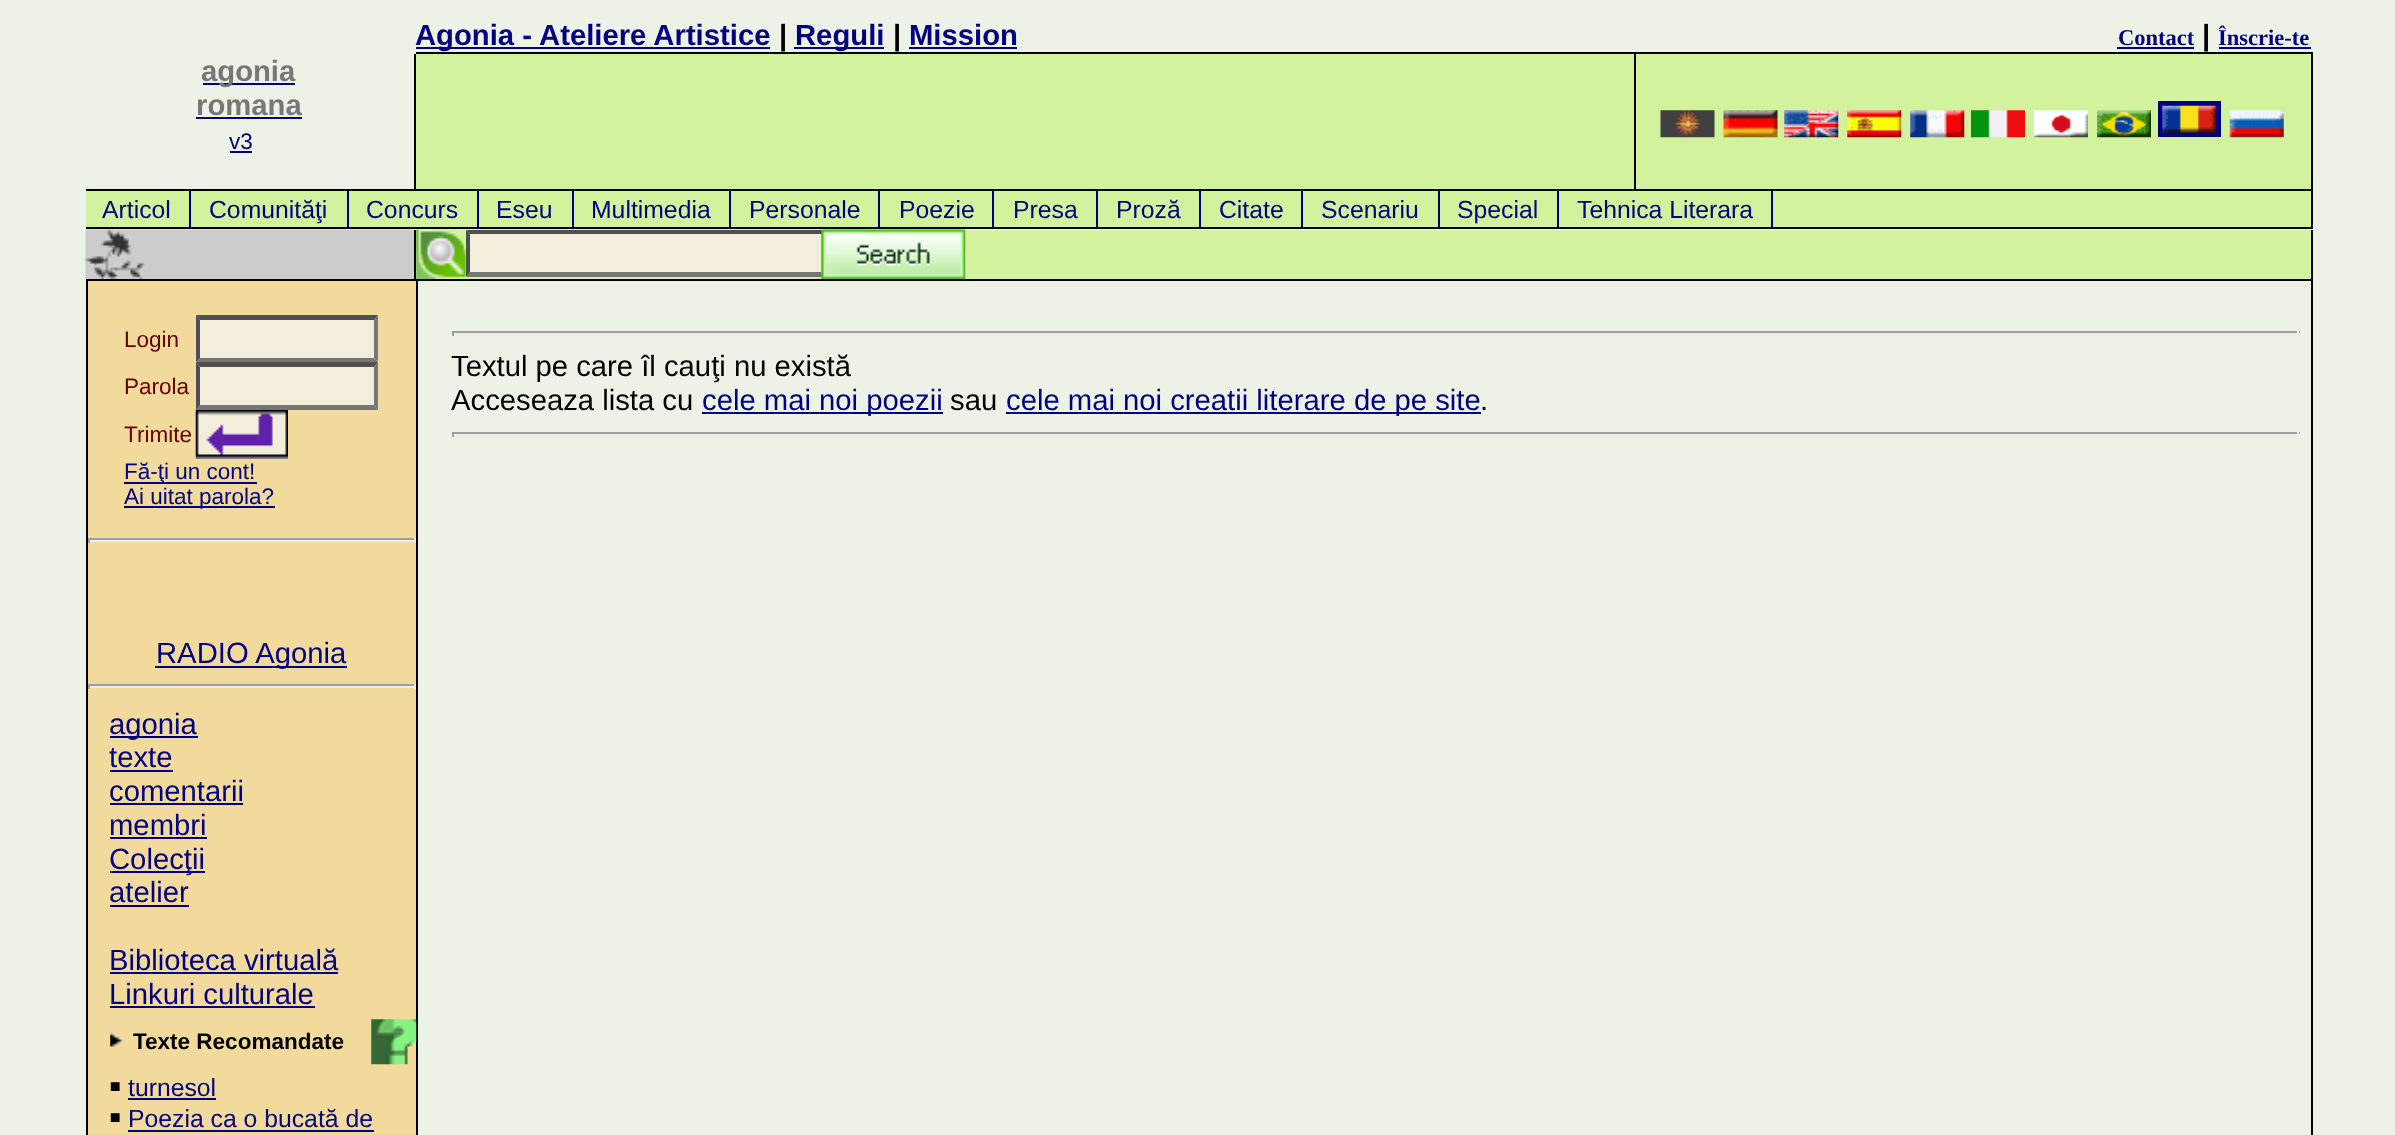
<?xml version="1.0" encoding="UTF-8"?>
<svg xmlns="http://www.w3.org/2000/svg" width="2395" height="1135">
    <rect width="100%" height="100%" fill="#EDF2E6"/>
    <rect x="416" y="47" width="354" height="2" fill="#000080"/>
    <text x="415" y="45" font-family="Liberation Sans" font-size="29.25" font-weight="700" fill="#000080">Agonia - Ateliere Artistice</text>
    <text x="779" y="45" font-family="Liberation Sans" font-size="29.25" font-weight="700" fill="#000000">|</text>
    <rect x="794" y="47" width="90" height="2" fill="#000080"/>
    <text x="795" y="45" font-family="Liberation Sans" font-size="29.25" font-weight="700" fill="#000080">Reguli</text>
    <text x="893" y="45" font-family="Liberation Sans" font-size="29.25" font-weight="700" fill="#000000">|</text>
    <text x="909" y="45" font-family="Liberation Sans" font-size="29.25" font-weight="700" fill="#000080">Mission</text>
    <rect x="909" y="47" width="108" height="2" fill="#000080"/>
    <text x="2118" y="45" font-family="Liberation Serif" font-size="22.5" font-weight="700" fill="#000080">Contact</text>
    <rect x="2117" y="47" width="77" height="2" fill="#000080"/>
    <text x="2202" y="45" font-family="Liberation Sans" font-size="29.25" font-weight="700" fill="#000000">|</text>
    <text x="2218" y="45" font-family="Liberation Serif" font-size="22.5" font-weight="700" fill="#000080">Înscrie-te</text>
    <rect x="2219" y="47" width="92" height="2" fill="#000080"/>
    <rect x="203" y="83" width="92" height="2" fill="#000080"/>
    <text x="201" y="81" font-family="Liberation Sans" font-size="29.25" font-weight="700" fill="#777777">agonia</text>
    <text x="196" y="115" font-family="Liberation Sans" font-size="29.25" font-weight="700" fill="#777777">romana</text>
    <rect x="196" y="117" width="106" height="2" fill="#000080"/>
    <text x="229" y="149" font-family="Liberation Sans" font-size="22.5" fill="#000080">v3</text>
    <rect x="230" y="151" width="22" height="2" fill="#000080"/>
    <rect x="416" y="52" width="1897" height="2" fill="#000000"/>
    <rect x="414" y="54" width="2" height="135" fill="#000000"/>
    <rect x="416" y="54" width="1218" height="135" fill="#D2F29D"/>
    <rect x="1634" y="54" width="2" height="135" fill="#000000"/>
    <rect x="1636" y="54" width="675" height="135" fill="#D2F29D"/>
    <rect x="2160.5" y="103.5" width="58" height="31" fill="none" stroke="#000080" stroke-width="5"/>
    <image x="1660" y="110" width="55" height="28" href="img_01.png"/>
    <image x="1723" y="110" width="55" height="28" href="img_02.png"/>
    <image x="1784" y="110" width="55" height="28" href="img_03.png"/>
    <image x="1847" y="110" width="55" height="28" href="img_04.png"/>
    <image x="1910" y="110" width="55" height="28" href="img_05.png"/>
    <image x="1971" y="110" width="54" height="28" href="img_06.png"/>
    <image x="2034" y="110" width="54" height="28" href="img_07.png"/>
    <image x="2097" y="110" width="54" height="28" href="img_08.png"/>
    <image x="2162" y="105" width="55" height="28" href="img_09.png"/>
    <image x="2229" y="110" width="55" height="28" href="img_10.png"/>
    <rect x="2311" y="54" width="2" height="135" fill="#000000"/>
    <rect x="86" y="189" width="2227" height="2" fill="#000000"/>
    <rect x="86" y="191" width="2225" height="36" fill="#D2F29D"/>
    <rect x="189" y="191" width="2" height="36" fill="#000080"/>
    <text x="102" y="218" font-family="Liberation Sans" font-size="24.75" fill="#000080">Articol</text>
    <rect x="347" y="191" width="2" height="36" fill="#000080"/>
    <text x="209" y="218" font-family="Liberation Sans" font-size="24.75" fill="#000080">Comunităţi</text>
    <rect x="477" y="191" width="2" height="36" fill="#000080"/>
    <text x="366" y="218" font-family="Liberation Sans" font-size="24.75" fill="#000080">Concurs</text>
    <rect x="572" y="191" width="2" height="36" fill="#000080"/>
    <text x="496" y="218" font-family="Liberation Sans" font-size="24.75" fill="#000080">Eseu</text>
    <rect x="729" y="191" width="2" height="36" fill="#000080"/>
    <text x="591" y="218" font-family="Liberation Sans" font-size="24.75" fill="#000080">Multimedia</text>
    <rect x="878" y="191" width="2" height="36" fill="#000080"/>
    <text x="749" y="218" font-family="Liberation Sans" font-size="24.75" fill="#000080">Personale</text>
    <rect x="992" y="191" width="2" height="36" fill="#000080"/>
    <text x="899" y="218" font-family="Liberation Sans" font-size="24.75" fill="#000080">Poezie</text>
    <rect x="1096" y="191" width="2" height="36" fill="#000080"/>
    <text x="1013" y="218" font-family="Liberation Sans" font-size="24.75" fill="#000080">Presa</text>
    <rect x="1199" y="191" width="2" height="36" fill="#000080"/>
    <text x="1116" y="218" font-family="Liberation Sans" font-size="24.75" fill="#000080">Proză</text>
    <rect x="1301" y="191" width="2" height="36" fill="#000080"/>
    <text x="1219" y="218" font-family="Liberation Sans" font-size="24.75" fill="#000080">Citate</text>
    <rect x="1438" y="191" width="2" height="36" fill="#000080"/>
    <text x="1321" y="218" font-family="Liberation Sans" font-size="24.75" fill="#000080">Scenariu</text>
    <rect x="1557" y="191" width="2" height="36" fill="#000080"/>
    <text x="1457" y="218" font-family="Liberation Sans" font-size="24.75" fill="#000080">Special</text>
    <rect x="1771" y="191" width="2" height="36" fill="#000080"/>
    <text x="1577" y="218" font-family="Liberation Sans" font-size="24.75" fill="#000080">Tehnica Literara</text>
    <rect x="2311" y="191" width="2" height="36" fill="#000000"/>
    <rect x="86" y="227" width="2227" height="2" fill="#000000"/>
    <image x="85" y="229" width="329" height="50" href="img_11.png"/>
    <rect x="414" y="230" width="2" height="49" fill="#000000"/>
    <rect x="416" y="230" width="1895" height="49" fill="#D2F29D"/>
    <image x="416" y="229" width="496" height="50" href="img_12.png"/>
    <rect x="466" y="230" width="356" height="47" fill="#F2EEDB"/>
    <path d="M 466 230 H 882 L 878 234 H 470 Z" fill="#4F4F4F"/>
    <path d="M 882 277 H 466 L 470 272 H 878 Z" fill="#767676"/>
    <path d="M 466 277 V 230 L 470 234 V 272 Z" fill="#4F4F4F"/>
    <image x="821" y="229" width="145" height="50" href="img_13.png"/>
    <rect x="2311" y="230" width="2" height="49" fill="#000000"/>
    <rect x="86" y="279" width="2227" height="2" fill="#000000"/>
    <rect x="86" y="281" width="2" height="854" fill="#000000"/>
    <rect x="88" y="281" width="328" height="854" fill="#F2DA9D"/>
    <text x="124" y="347" font-family="Liberation Sans" font-size="22.5" fill="#660000">Login</text>
    <rect x="197" y="413" width="90" height="43" fill="#F2EEDB"/>
    <image x="195" y="409" width="93" height="50" href="img_14.png"/>
    <rect x="196" y="315" width="182" height="95" fill="#F2EEDB"/>
    <path d="M 196 315 H 378 L 374 320 H 200 Z" fill="#4F4F4F"/>
    <path d="M 378 315 V 362 L 374 358 V 320 Z" fill="#767676"/>
    <path d="M 378 362 H 196 L 200 358 H 374 Z" fill="#767676"/>
    <path d="M 196 362 V 315 L 200 320 V 358 Z" fill="#4F4F4F"/>
    <text x="124" y="394" font-family="Liberation Sans" font-size="22.5" fill="#660000">Parola</text>
    <path d="M 196 362 H 378 L 374 367 H 200 Z" fill="#4F4F4F"/>
    <path d="M 378 362 V 410 L 374 405 V 367 Z" fill="#767676"/>
    <path d="M 378 410 H 196 L 200 405 H 374 Z" fill="#767676"/>
    <path d="M 196 410 V 362 L 200 367 V 405 Z" fill="#4F4F4F"/>
    <text x="124" y="442" font-family="Liberation Sans" font-size="22.5" fill="#660000">Trimite</text>
    <rect x="124" y="482" width="133" height="2" fill="#000080"/>
    <text x="124" y="479" font-family="Liberation Sans" font-size="22.5" fill="#000080">Fă-ţi un cont!</text>
    <rect x="124" y="506" width="151" height="2" fill="#000080"/>
    <text x="124" y="504" font-family="Liberation Sans" font-size="22.5" fill="#000080">Ai uitat parola?</text>
    <rect x="88" y="538" width="328" height="2" fill="#9F9F9F"/>
    <rect x="414" y="538" width="2" height="5" fill="#EEEEEE"/>
    <rect x="88" y="540" width="328" height="2" fill="#EEEEEE"/>
    <rect x="88" y="538" width="2" height="5" fill="#9F9F9F"/>
    <rect x="155" y="666" width="192" height="2" fill="#000080"/>
    <text x="156" y="663" font-family="Liberation Sans" font-size="29.25" fill="#000080">RADIO Agonia</text>
    <rect x="88" y="684" width="328" height="2" fill="#9F9F9F"/>
    <rect x="414" y="684" width="2" height="5" fill="#EEEEEE"/>
    <rect x="88" y="686" width="328" height="2" fill="#EEEEEE"/>
    <rect x="88" y="684" width="2" height="5" fill="#9F9F9F"/>
    <rect x="110" y="736" width="88" height="2" fill="#000080"/>
    <text font-family="Liberation Sans" font-size="29.25" fill="#000080">
        <tspan x="109" y="734">agonia</tspan>
        <tspan x="109" y="767">texte</tspan>
    </text>
    <rect x="110" y="770" width="63" height="2" fill="#000080"/>
    <text x="109" y="801" font-family="Liberation Sans" font-size="29.25" fill="#000080">comentarii</text>
    <rect x="110" y="803" width="133" height="2" fill="#000080"/>
    <text x="109" y="835" font-family="Liberation Sans" font-size="29.25" fill="#000080">membri</text>
    <rect x="110" y="837" width="97" height="2" fill="#000080"/>
    <rect x="110" y="871" width="95" height="2" fill="#000080"/>
    <text font-family="Liberation Sans" font-size="29.25" fill="#000080">
        <tspan x="109" y="869">Colecţii</tspan>
        <tspan x="109" y="902">atelier</tspan>
    </text>
    <rect x="110" y="905" width="79" height="2" fill="#000080"/>
    <text x="109" y="970" font-family="Liberation Sans" font-size="29.25" fill="#000080">Biblioteca virtuală</text>
    <rect x="110" y="972" width="228" height="2" fill="#000080"/>
    <text x="109" y="1004" font-family="Liberation Sans" font-size="29.25" fill="#000080">Linkuri culturale</text>
    <rect x="110" y="1006" width="205" height="2" fill="#000080"/>
    <image x="110" y="1032" width="13" height="17" href="img_15.png"/>
    <text x="133" y="1049" font-family="Liberation Sans" font-size="22.5" font-weight="700" fill="#000000">Texte Recomandate</text>
    <rect x="416" y="281" width="2" height="854" fill="#000000"/>
    <image x="371" y="1019" width="46" height="46" href="img_16.png"/>
    <text x="109" y="1096" font-family="Chiron Hei HK" font-size="24.75" fill="#000000">￭</text>
    <text x="128" y="1096" font-family="Liberation Sans" font-size="24.75" fill="#000080">turnesol</text>
    <rect x="128" y="1098" width="88" height="2" fill="#000080"/>
    <text x="109" y="1127" font-family="Chiron Hei HK" font-size="24.75" fill="#000000">￭</text>
    <text x="128" y="1127" font-family="Liberation Sans" font-size="24.75" fill="#000080">Poezia ca o bucată de</text>
    <rect x="128" y="1130" width="246" height="2" fill="#000080"/>
    <rect x="452" y="331" width="1848" height="2" fill="#9F9F9F"/>
    <rect x="2297" y="331" width="2" height="5" fill="#EEEEEE"/>
    <rect x="452" y="333" width="1848" height="2" fill="#EEEEEE"/>
    <rect x="452" y="331" width="2" height="5" fill="#9F9F9F"/>
    <text font-family="Liberation Sans" font-size="29.25" fill="#000000">
        <tspan x="451" y="376">Textul pe care îl cauţi nu există</tspan>
        <tspan x="451" y="410">Acceseaza lista cu</tspan>
    </text>
    <rect x="702" y="412" width="241" height="2" fill="#000080"/>
    <text x="702" y="410" font-family="Liberation Sans" font-size="29.25" fill="#000080">cele mai noi poezii</text>
    <text x="950" y="410" font-family="Liberation Sans" font-size="29.25" fill="#000000">sau</text>
    <rect x="1006" y="412" width="475" height="2" fill="#000080"/>
    <text x="1006" y="410" font-family="Liberation Sans" font-size="29.25" fill="#000080">cele mai noi creatii literare de pe site</text>
    <text x="1480" y="410" font-family="Liberation Sans" font-size="29.25" fill="#000000">.</text>
    <rect x="452" y="432" width="1848" height="2" fill="#9F9F9F"/>
    <rect x="2297" y="432" width="2" height="5" fill="#EEEEEE"/>
    <rect x="452" y="434" width="1848" height="2" fill="#EEEEEE"/>
    <rect x="452" y="432" width="2" height="5" fill="#9F9F9F"/>
    <rect x="2311" y="281" width="2" height="854" fill="#000000"/>
</svg>
